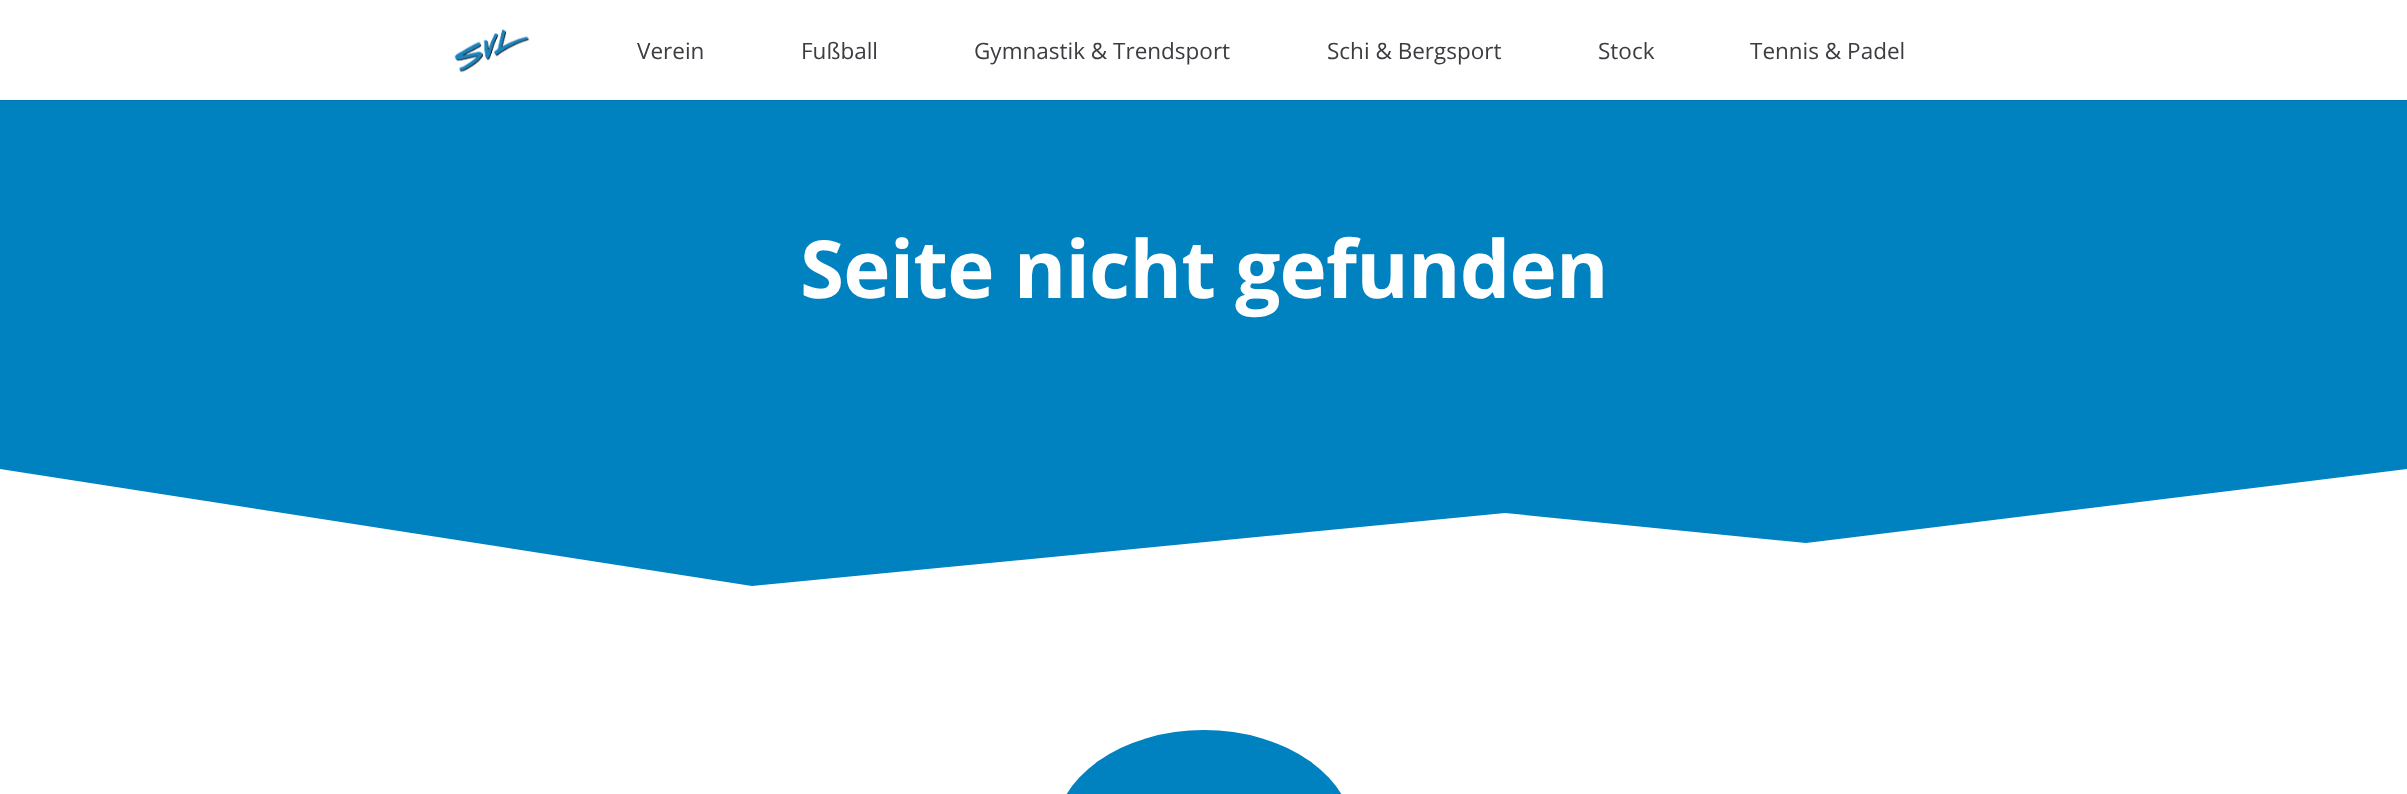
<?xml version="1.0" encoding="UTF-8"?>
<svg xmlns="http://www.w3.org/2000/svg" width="2407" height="794">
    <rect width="100%" height="100%" fill="#FFFFFF"/>
    <path d="M 0 100 V 101 H 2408 V 1 V 100 Z" fill="#0077B1"/>
    <image x="454" y="29" width="76" height="44" href="img_01.png"/>
    <text x="637" y="59" font-family="Open Sans" font-size="22.5" fill="#3B3D40">Verein</text>
    <text x="801" y="59" font-family="Open Sans" font-size="22.5" fill="#3B3D40">Fußball</text>
    <text x="974" y="59" font-family="Open Sans" font-size="22.5" fill="#3B3D40">Gymnastik &amp; Trendsport</text>
    <text x="1327" y="59" font-family="Open Sans" font-size="22.5" fill="#3B3D40">Schi &amp; Bergsport</text>
    <text x="1598" y="59" font-family="Open Sans" font-size="22.5" fill="#3B3D40">Stock</text>
    <text x="1750" y="59" font-family="Open Sans" font-size="22.5" fill="#3B3D40">Tennis &amp; Padel</text>
    <rect x="0" y="101" width="2407" height="485" fill="#0081C0"/>
    <text x="800" y="298" font-family="Open Sans" font-size="80" font-weight="700" letter-spacing="-0.8" fill="#FFFFFF">Seite nicht gefunden</text>
    <path d="M 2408 588 H 0 V 469 L 752 586 L 1505 513 L 1806 543 L 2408 469 Z" fill="#FFFFFF"/>
    <rect x="1054" y="730" width="300" height="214" rx="150" fill="#0081C0"/>
</svg>
